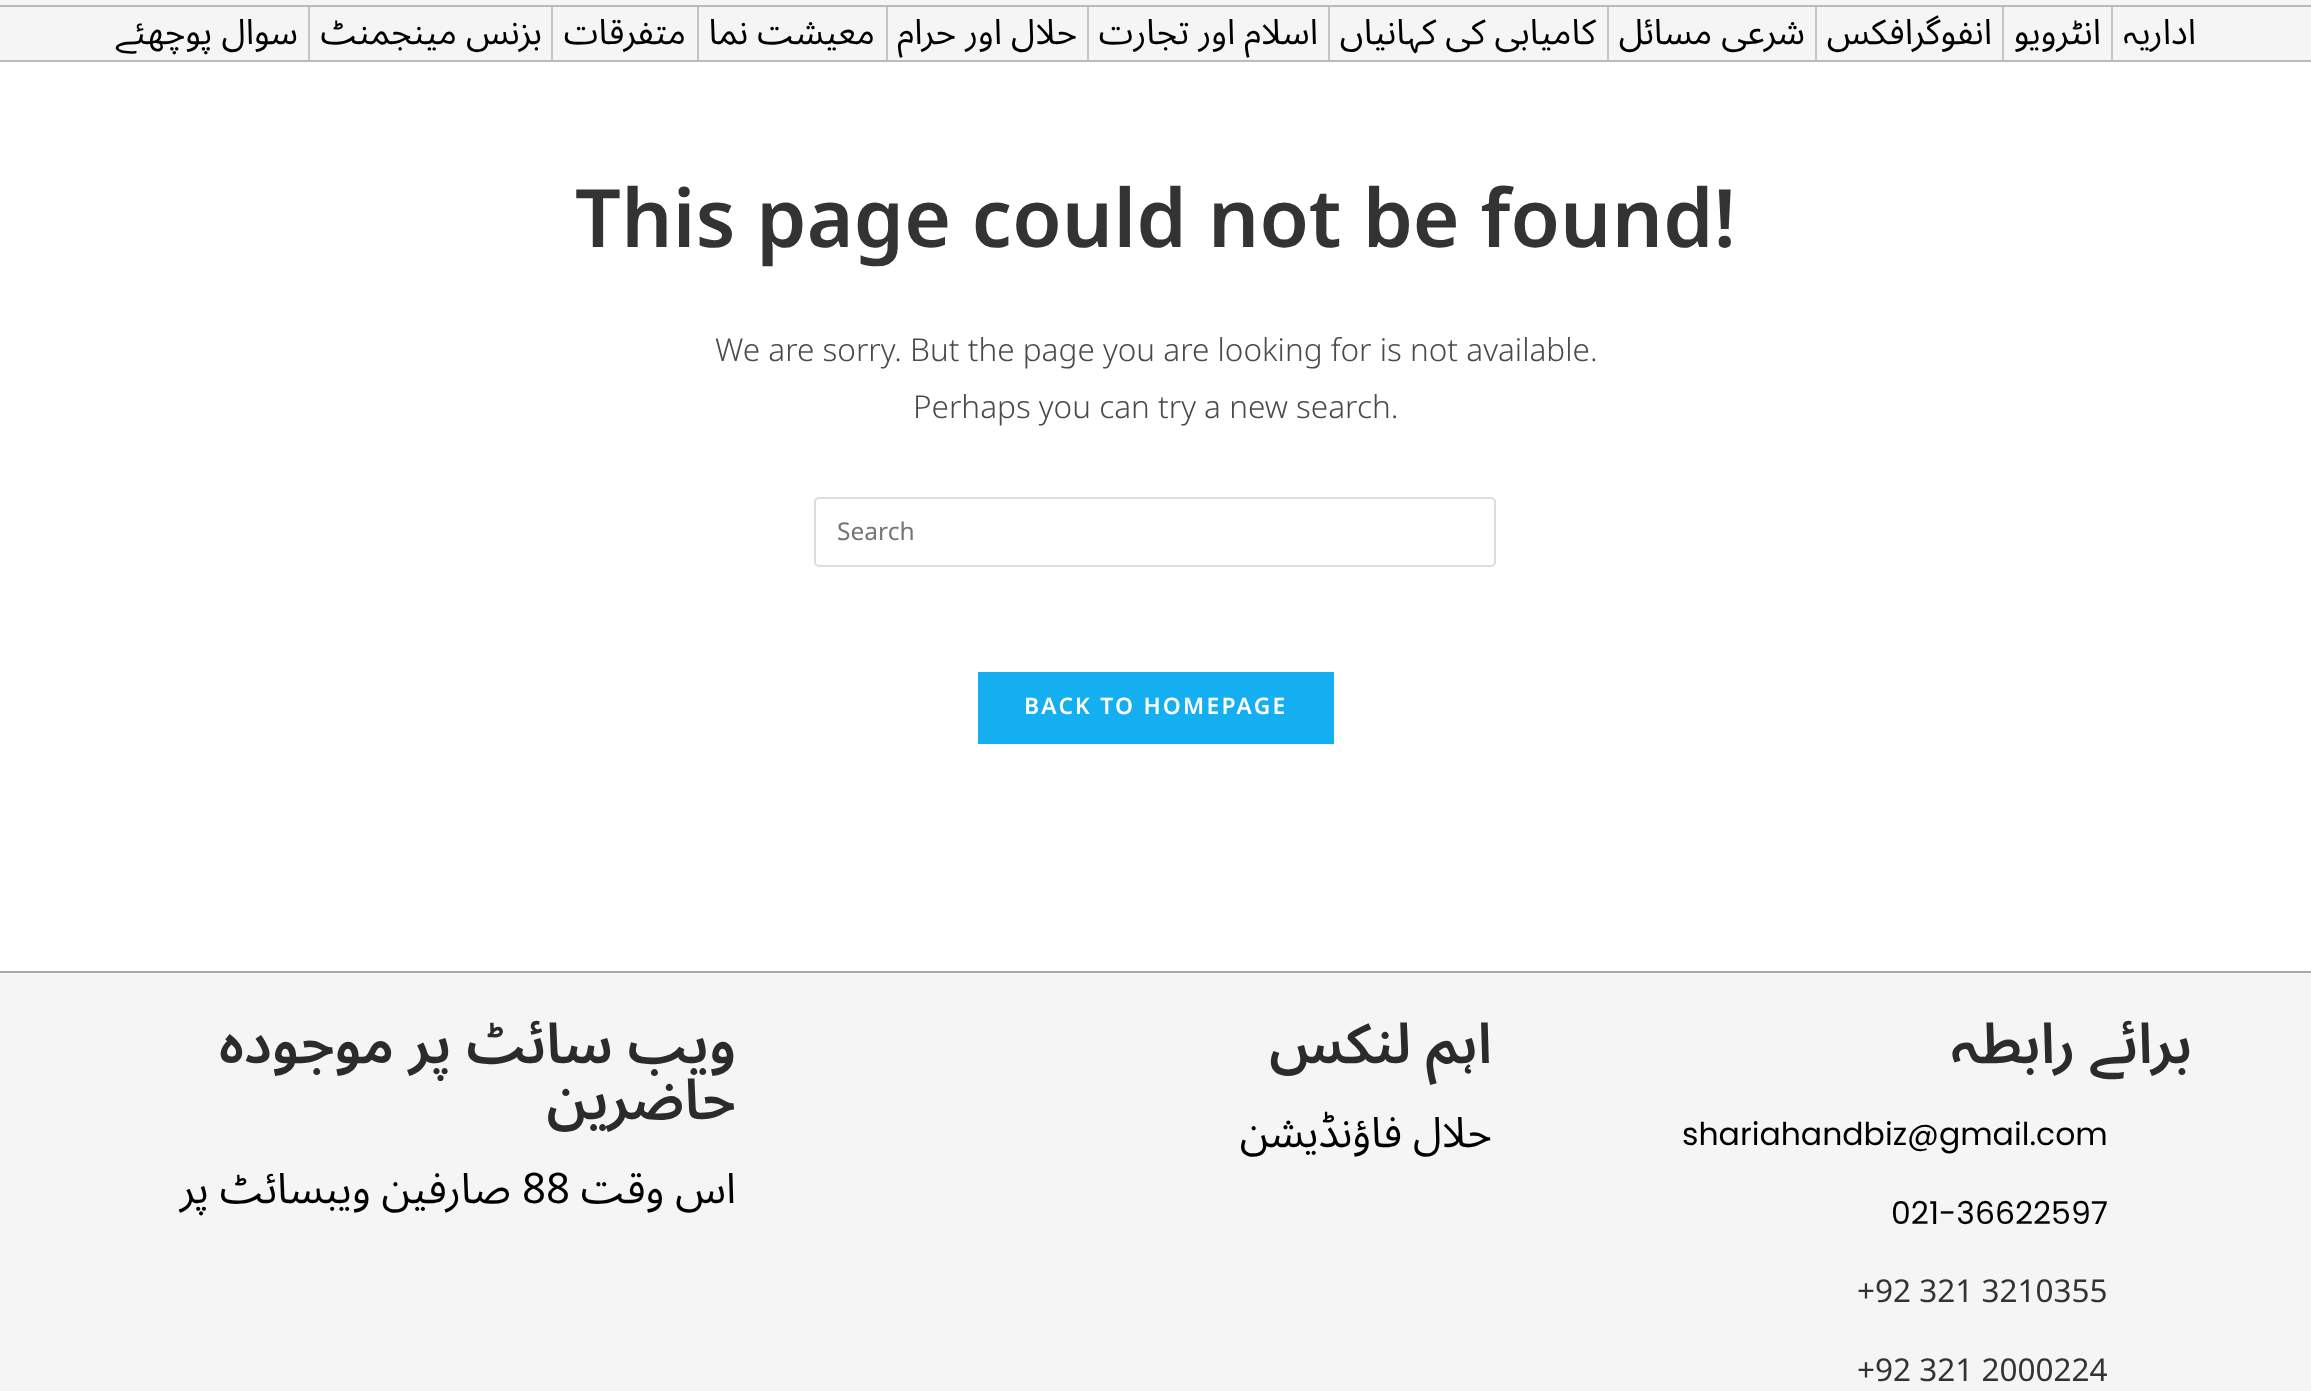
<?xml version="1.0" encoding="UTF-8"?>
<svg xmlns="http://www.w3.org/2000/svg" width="2311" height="1391">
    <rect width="100%" height="100%" fill="#FFFFFF"/>
    <rect x="0" y="0" width="2311" height="5" fill="#F5F5F5"/>
    <rect x="0" y="5" width="2311" height="2" fill="#BBBBBB"/>
    <rect x="0" y="7" width="2311" height="53" fill="#F5F5F5"/>
    <rect x="0" y="60" width="2311" height="2" fill="#BBBBBB"/>
    <text x="298" y="44" font-family="Noto Sans Arabic" font-size="35" direction="rtl" fill="#000000">سوال پوچھئے</text>
    <rect x="308" y="7" width="2" height="53" fill="#C5C4C4"/>
    <text x="542" y="44" font-family="Noto Sans Arabic" font-size="35" direction="rtl" fill="#000000">بزنس مینجمنٹ</text>
    <rect x="551" y="7" width="2" height="53" fill="#C5C4C4"/>
    <text x="686" y="44" font-family="Noto Sans Arabic" font-size="35" direction="rtl" fill="#000000">متفرقات</text>
    <rect x="697" y="7" width="2" height="53" fill="#C5C4C4"/>
    <text x="875" y="44" font-family="Noto Sans Arabic" font-size="35" direction="rtl" fill="#000000">معیشت نما</text>
    <rect x="886" y="7" width="2" height="53" fill="#C5C4C4"/>
    <text x="1077" y="44" font-family="Noto Sans Arabic" font-size="35" direction="rtl" fill="#000000">حلال اور حرام</text>
    <rect x="1087" y="7" width="2" height="53" fill="#C5C4C4"/>
    <text x="1318" y="44" font-family="Noto Sans Arabic" font-size="35" direction="rtl" fill="#000000">اسلام اور تجارت</text>
    <rect x="1328" y="7" width="2" height="53" fill="#C5C4C4"/>
    <text x="1596" y="44" font-family="Noto Sans Arabic" font-size="35" direction="rtl" fill="#000000">کامیابی کی کہانیاں</text>
    <rect x="1607" y="7" width="2" height="53" fill="#C5C4C4"/>
    <text x="1805" y="44" font-family="Noto Sans Arabic" font-size="35" direction="rtl" fill="#000000">شرعی مسائل</text>
    <rect x="1815" y="7" width="2" height="53" fill="#C5C4C4"/>
    <text x="1992" y="44" font-family="Noto Sans Arabic" font-size="35" direction="rtl" fill="#000000">انفوگرافکس</text>
    <rect x="2002" y="7" width="2" height="53" fill="#C5C4C4"/>
    <text x="2101" y="44" font-family="Noto Sans Arabic" font-size="35" direction="rtl" fill="#000000">انٹرویو</text>
    <rect x="2111" y="7" width="2" height="53" fill="#C5C4C4"/>
    <text x="2196" y="44" font-family="Noto Sans Arabic" font-size="35" direction="rtl" fill="#000000">اداریہ</text>
    <text x="575" y="247" font-family="Noto Sans Arabic" font-size="80.5" font-weight="600" fill="#333333">This page could not be found!</text>
    <text x="715" y="361" font-family="Noto Sans Arabic" font-size="31.5" font-weight="300" fill="#4A4A4A">We are sorry. But the page you are looking for is not available.</text>
    <text x="913" y="418" font-family="Noto Sans Arabic" font-size="31.5" font-weight="300" fill="#4A4A4A">Perhaps you can try a new search.</text>
    <rect x="815" y="498" width="680" height="68" rx="4" fill="none" stroke="#DDDDDD" stroke-width="2"/>
    <text x="837" y="540" font-family="Noto Sans Arabic" font-size="24.5" fill="#757575">Search</text>
    <rect x="978" y="672" width="356" height="72" fill="#13AFF0"/>
    <text x="1024" y="714" font-family="Noto Sans Arabic" font-size="22.75" font-weight="600" letter-spacing="2.25" fill="#FFFFFF">BACK TO HOMEPAGE</text>
    <rect x="0" y="973" width="2311" height="418" fill="#F5F5F5"/>
    <rect x="0" y="971" width="2311" height="2" fill="#A8A8A8"/>
    <text font-family="Noto Sans Arabic" font-size="56" font-weight="600" direction="rtl" fill="#2B2B2B">
        <tspan x="736" y="1063">ویب سائٹ پر موجودہ</tspan>
        <tspan x="736" y="1119">حاضرین</tspan>
    </text>
    <text x="511" y="1203" font-family="Noto Sans Arabic" font-size="42" direction="rtl" fill="#000000">صارفین ویبسائٹ پر</text>
    <text x="522" y="1203" font-family="Noto Sans Arabic" font-size="42" fill="#000000">88</text>
    <text x="736" y="1203" font-family="Noto Sans Arabic" font-size="42" direction="rtl" fill="#000000">اس وقت</text>
    <text x="1492" y="1063" font-family="Noto Sans Arabic" font-size="56" font-weight="600" direction="rtl" fill="#2B2B2B">اہم لنکس</text>
    <text x="1492" y="1147" font-family="Noto Sans Arabic" font-size="42" direction="rtl" fill="#000000">حلال فاؤنڈیشن</text>
    <text x="2192" y="1063" font-family="Noto Sans Arabic" font-size="56" font-weight="600" direction="rtl" fill="#2B2B2B">برائے رابطہ</text>
    <text x="1682" y="1145" font-family="Poppins" font-size="31.5" fill="#000000">shariahandbiz@gmail.com</text>
    <text x="1891" y="1224" font-family="Poppins" font-size="31.5" fill="#000000">021-36622597</text>
    <text x="1857" y="1302" font-family="Noto Sans Arabic" font-size="31.5" fill="#333333">+92 321 3210355</text>
    <text x="1857" y="1381" font-family="Noto Sans Arabic" font-size="31.5" fill="#333333">+92 321 2000224</text>
</svg>
